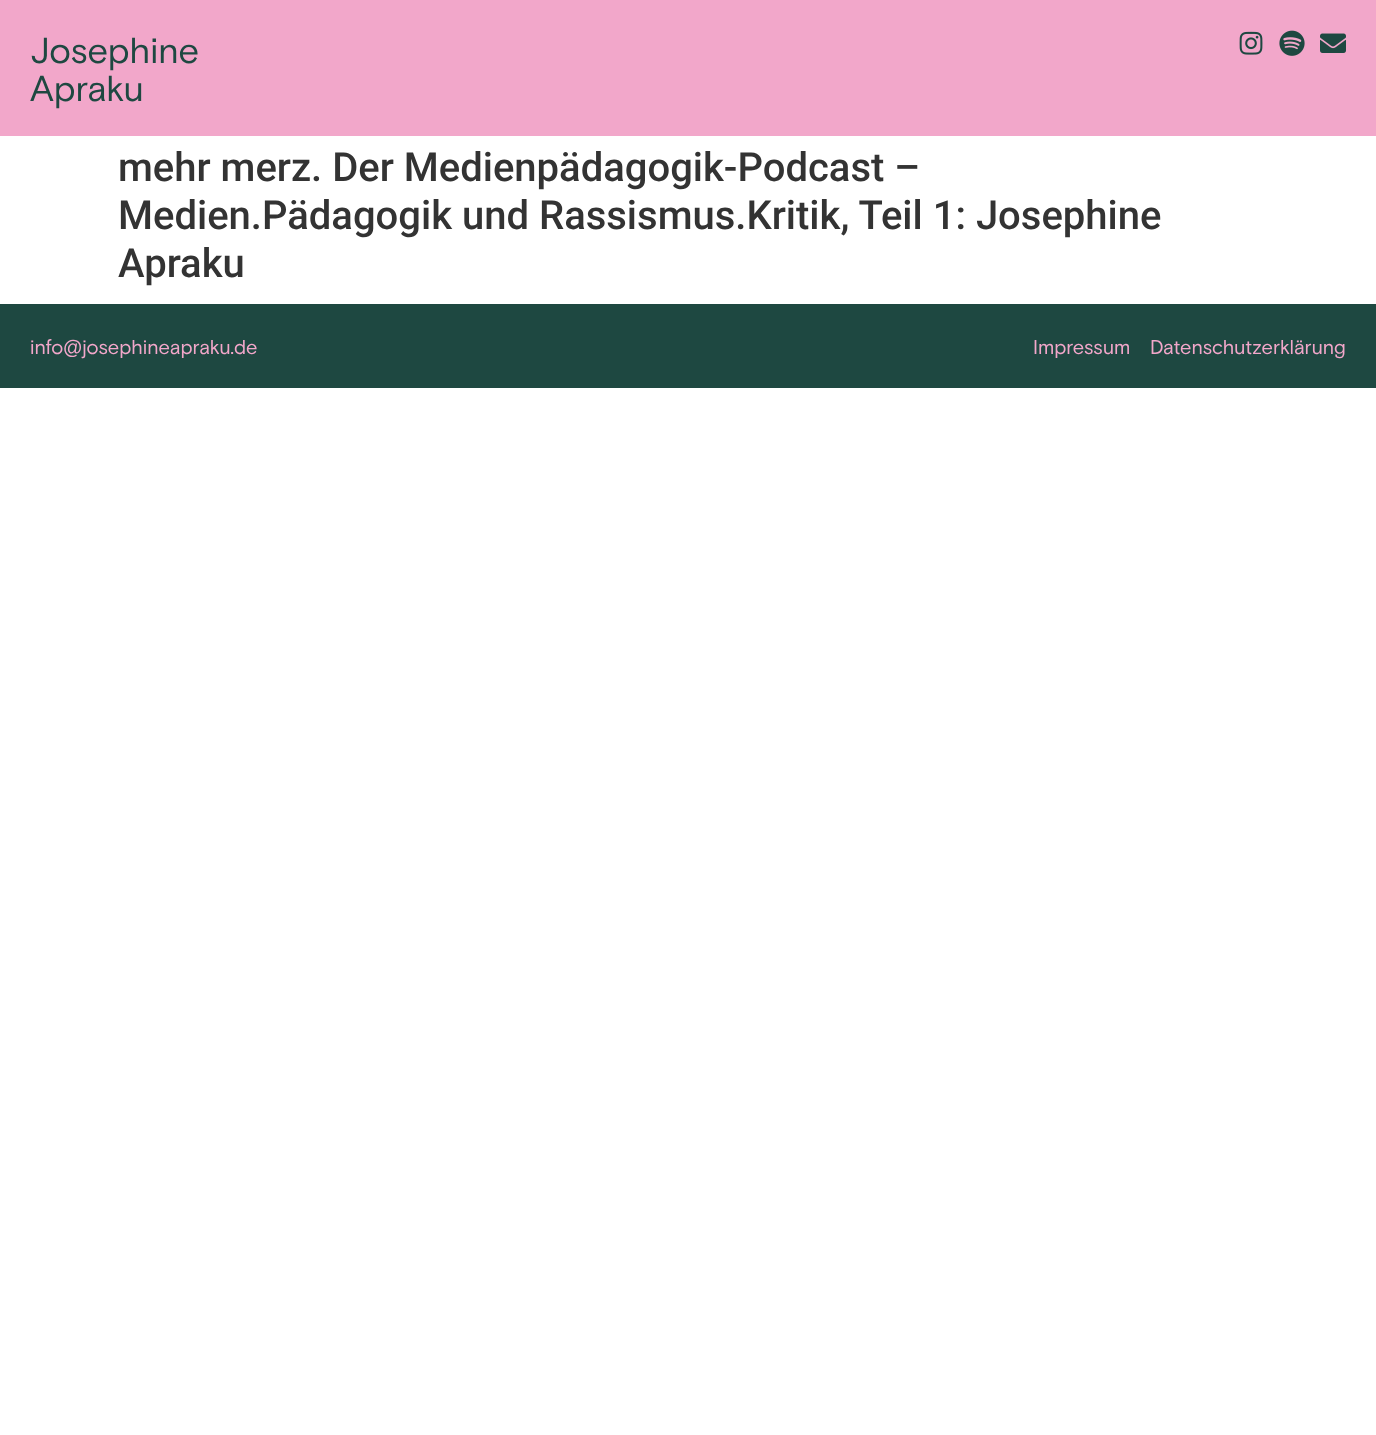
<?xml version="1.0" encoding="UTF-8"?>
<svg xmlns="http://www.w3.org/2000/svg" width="1376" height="1435">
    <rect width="100%" height="100%" fill="#FFFFFF"/>
    <rect x="0" y="0" width="1376" height="136" fill="#F2A7CA"/>
    <text font-family="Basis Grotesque" font-size="36" fill="#1E4841">
        <tspan x="30" y="63">Josephine</tspan>
        <tspan x="30" y="101">Apraku</tspan>
    </text>
    <image x="1239" y="31" width="24" height="24" href="img_01.png"/>
    <image x="1279" y="30" width="26" height="26" href="img_02.png"/>
    <image x="1320" y="33" width="26" height="20" href="img_03.png"/>
    <text font-family="Roboto" font-size="40" font-weight="500" fill="#333333">
        <tspan x="118" y="181">mehr merz. Der Medienpädagogik-Podcast –</tspan>
        <tspan x="118" y="229">Medien.Pädagogik und Rassismus.Kritik, Teil 1: Josephine</tspan>
        <tspan x="118" y="277">Apraku</tspan>
    </text>
    <rect x="0" y="304" width="1376" height="84" fill="#1E4841"/>
    <text x="30" y="354" font-family="Basis Grotesque" font-size="20" fill="#F2A7CA">info@josephineapraku.de</text>
    <text x="1033" y="354" font-family="Basis Grotesque" font-size="20" fill="#F2A7CA">Impressum</text>
    <text x="1150" y="354" font-family="Basis Grotesque" font-size="20" fill="#F2A7CA">Datenschutzerklärung</text>
</svg>
